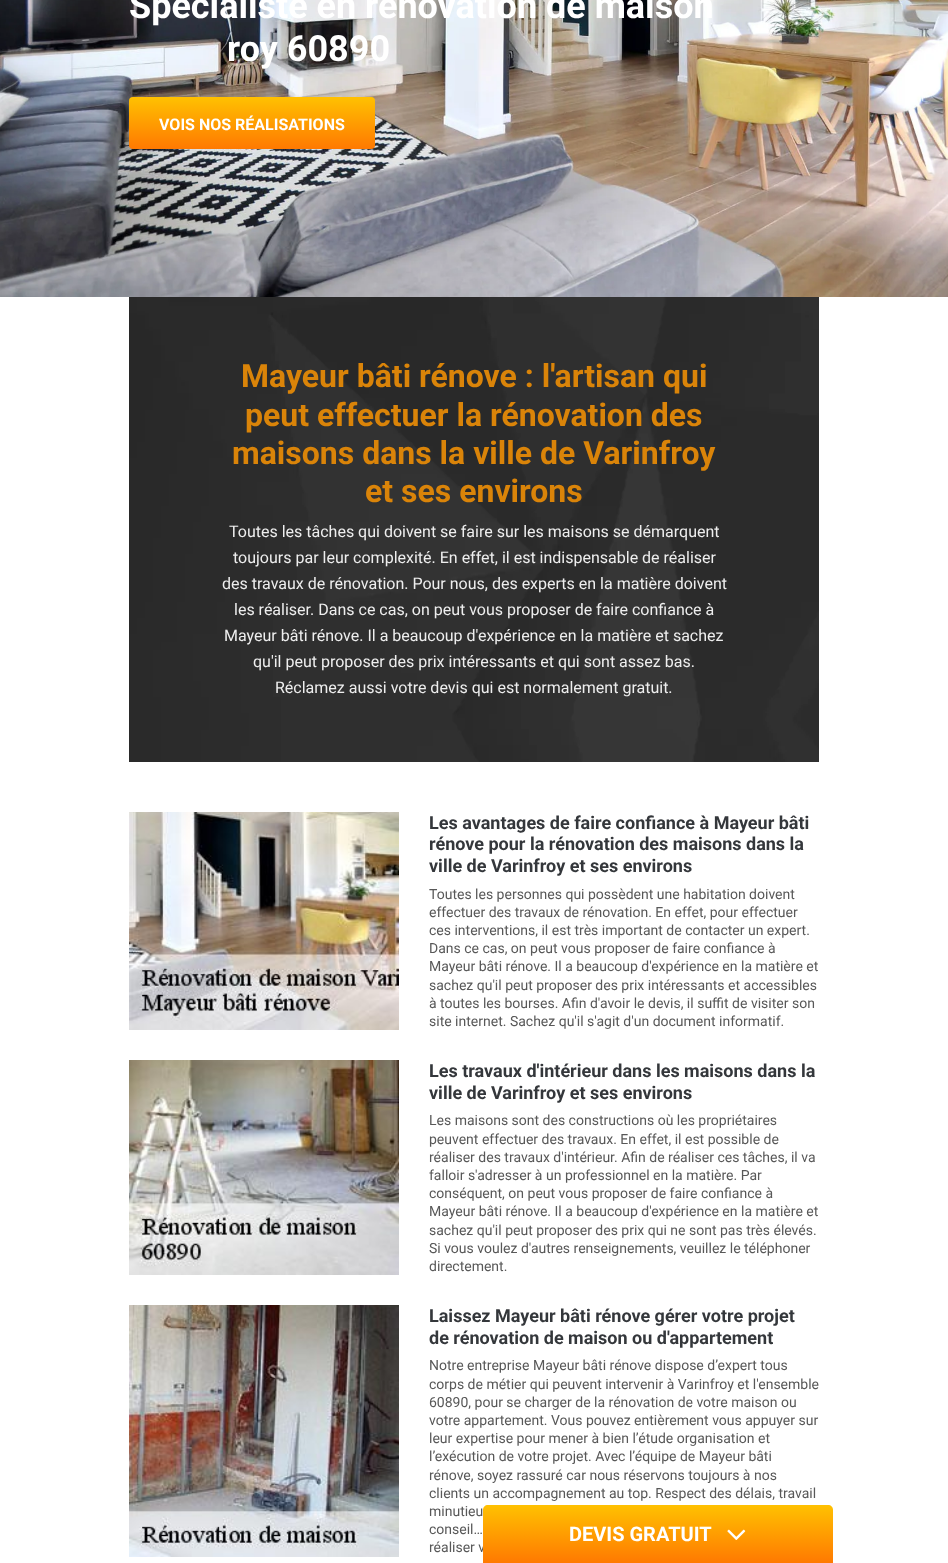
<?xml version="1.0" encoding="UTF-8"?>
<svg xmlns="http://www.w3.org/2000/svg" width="948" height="1563">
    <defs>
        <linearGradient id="g1" gradientUnits="userSpaceOnUse" x1="252" y1="97" x2="252" y2="149"><stop offset="0" stop-color="#FFC101"/><stop offset="1" stop-color="#FF7901"/></linearGradient>
        <linearGradient id="g2" gradientUnits="userSpaceOnUse" x1="658" y1="1505" x2="658" y2="1563"><stop offset="0" stop-color="#FFC101"/><stop offset="1" stop-color="#FF7901"/></linearGradient>
    </defs>
    <rect width="100%" height="100%" fill="#FFFFFF"/>
    <image x="0" y="0" width="948" height="297" href="img_01.png"/>
    <text x="129" y="18" font-family="Roboto" font-size="36" font-weight="700" fill="#FFFFFF">Spécialiste en rénovation de maison</text>
    <text x="227" y="61" font-family="Roboto" font-size="36" font-weight="700" fill="#FFFFFF">roy 60890</text>
    <rect x="129" y="97" width="246" height="52" rx="4" fill="url(#g1)"/>
    <text x="159" y="130" font-family="Roboto" font-size="16" font-weight="700" fill="#FFFFFF">VOIS NOS RÉALISATIONS</text>
    <image x="129" y="297" width="690" height="465" href="img_02.png"/>
    <text x="241" y="387" font-family="Roboto" font-size="32" font-weight="700" fill="#DA8409">Mayeur bâti rénove : l'artisan qui</text>
    <text x="245" y="426" font-family="Roboto" font-size="32" font-weight="700" fill="#DA8409">peut effectuer la rénovation des</text>
    <text x="232" y="464" font-family="Roboto" font-size="32" font-weight="700" fill="#DA8409">maisons dans la ville de Varinfroy</text>
    <text x="365" y="502" font-family="Roboto" font-size="32" font-weight="700" fill="#DA8409">et ses environs</text>
    <text x="229" y="537" font-family="Roboto" font-size="16" fill="#EEEEEE">Toutes les tâches qui doivent se faire sur les maisons se démarquent</text>
    <text x="233" y="563" font-family="Roboto" font-size="16" fill="#EEEEEE">toujours par leur complexité. En effet, il est indispensable de réaliser</text>
    <text x="222" y="589" font-family="Roboto" font-size="16" fill="#EEEEEE">des travaux de rénovation. Pour nous, des experts en la matière doivent</text>
    <text x="234" y="615" font-family="Roboto" font-size="16" fill="#EEEEEE">les réaliser. Dans ce cas, on peut vous proposer de faire confiance à</text>
    <text x="224" y="641" font-family="Roboto" font-size="16" fill="#EEEEEE">Mayeur bâti rénove. Il a beaucoup d'expérience en la matière et sachez</text>
    <text x="253" y="667" font-family="Roboto" font-size="16" fill="#EEEEEE">qu'il peut proposer des prix intéressants et qui sont assez bas.</text>
    <text x="275" y="693" font-family="Roboto" font-size="16" fill="#EEEEEE">Réclamez aussi votre devis qui est normalement gratuit.</text>
    <image x="129" y="812" width="270" height="218" href="img_03.png"/>
    <text font-family="Roboto" font-size="18" font-weight="700" fill="#34373B">
        <tspan x="429" y="829">Les avantages de faire confiance à Mayeur bâti</tspan>
        <tspan x="429" y="850">rénove pour la rénovation des maisons dans la</tspan>
        <tspan x="429" y="872">ville de Varinfroy et ses environs</tspan>
    </text>
    <text font-family="Roboto" font-size="14" fill="#585858">
        <tspan x="429" y="899">Toutes les personnes qui possèdent une habitation doivent</tspan>
        <tspan x="429" y="917">effectuer des travaux de rénovation. En effet, pour effectuer</tspan>
        <tspan x="429" y="935">ces interventions, il est très important de contacter un expert.</tspan>
        <tspan x="429" y="953">Dans ce cas, on peut vous proposer de faire confiance à</tspan>
        <tspan x="429" y="971">Mayeur bâti rénove. Il a beaucoup d'expérience en la matière et</tspan>
        <tspan x="429" y="990">sachez qu'il peut proposer des prix intéressants et accessibles</tspan>
        <tspan x="429" y="1008">à toutes les bourses. Afin d'avoir le devis, il suffit de visiter son</tspan>
        <tspan x="429" y="1026">site internet. Sachez qu'il s'agit d'un document informatif.</tspan>
    </text>
    <image x="129" y="1060" width="270" height="215" href="img_04.png"/>
    <text font-family="Roboto" font-size="18" font-weight="700" fill="#34373B">
        <tspan x="429" y="1077">Les travaux d'intérieur dans les maisons dans la</tspan>
        <tspan x="429" y="1099">ville de Varinfroy et ses environs</tspan>
    </text>
    <text font-family="Roboto" font-size="14" fill="#585858">
        <tspan x="429" y="1125">Les maisons sont des constructions où les propriétaires</tspan>
        <tspan x="429" y="1144">peuvent effectuer des travaux. En effet, il est possible de</tspan>
        <tspan x="429" y="1162">réaliser des travaux d'intérieur. Afin de réaliser ces tâches, il va</tspan>
        <tspan x="429" y="1180">falloir s'adresser à un professionnel en la matière. Par</tspan>
        <tspan x="429" y="1198">conséquent, on peut vous proposer de faire confiance à</tspan>
        <tspan x="429" y="1216">Mayeur bâti rénove. Il a beaucoup d'expérience en la matière et</tspan>
        <tspan x="429" y="1235">sachez qu'il peut proposer des prix qui ne sont pas très élevés.</tspan>
        <tspan x="429" y="1253">Si vous voulez d'autres renseignements, veuillez le téléphoner</tspan>
        <tspan x="429" y="1271">directement.</tspan>
    </text>
    <image x="129" y="1305" width="270" height="252" href="img_05.png"/>
    <text font-family="Roboto" font-size="18" font-weight="700" fill="#34373B">
        <tspan x="429" y="1322">Laissez Mayeur bâti rénove gérer votre projet</tspan>
        <tspan x="429" y="1344">de rénovation de maison ou d'appartement</tspan>
    </text>
    <text font-family="Roboto" font-size="14" fill="#585858">
        <tspan x="429" y="1370">Notre entreprise Mayeur bâti rénove dispose d’expert tous</tspan>
        <tspan x="429" y="1389">corps de métier qui peuvent intervenir à Varinfroy et l'ensemble</tspan>
        <tspan x="429" y="1407">60890, pour se charger de la rénovation de votre maison ou</tspan>
        <tspan x="429" y="1425">votre appartement. Vous pouvez entièrement vous appuyer sur</tspan>
        <tspan x="429" y="1443">leur expertise pour mener à bien l’étude organisation et</tspan>
        <tspan x="429" y="1461">l’exécution de votre projet. Avec l’équipe de Mayeur bâti</tspan>
        <tspan x="429" y="1480">rénove, soyez rassuré car nous réservons toujours à nos</tspan>
        <tspan x="429" y="1498">clients un accompagnement au top. Respect des délais, travail</tspan>
        <tspan x="429" y="1516">minutieu</tspan>
        <tspan x="429" y="1534">conseil…</tspan>
        <tspan x="429" y="1552">réaliser v</tspan>
    </text>
    <path d="M 488 1505 H 828 C 831 1505 833 1507 833 1510 V 1563 H 483 V 1510 C 483 1507 485 1505 488 1505 Z" fill="url(#g2)"/>
    <text x="569" y="1541" font-family="Roboto" font-size="20" font-weight="700" fill="#FFFFFF">DEVIS GRATUIT</text>
    <image x="727" y="1529" width="19" height="11" href="img_06.png"/>
</svg>
